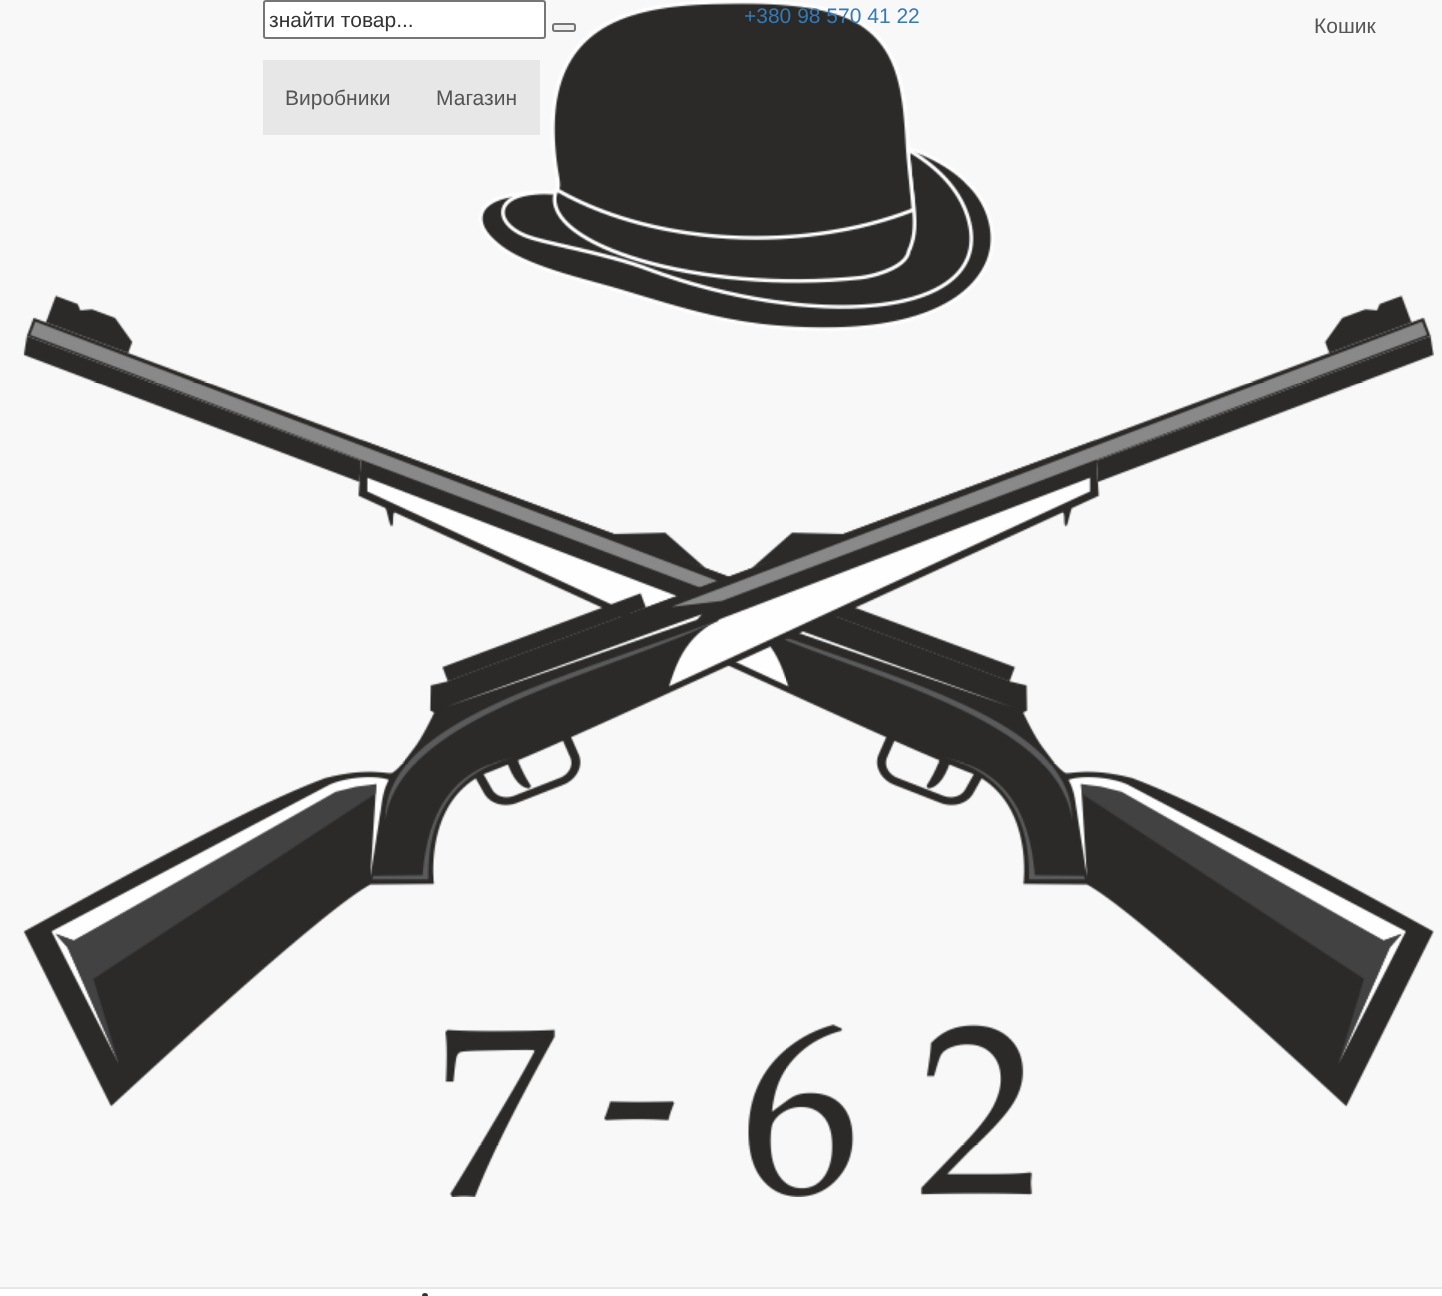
<?xml version="1.0" encoding="UTF-8"?>
<svg xmlns="http://www.w3.org/2000/svg" width="1442" height="1296">
    <rect width="100%" height="100%" fill="#FFFFFF"/>
    <rect x="0" y="0" width="1442" height="1287" fill="#F8F8F8"/>
    <rect x="0" y="1287" width="1442" height="2" fill="#E7E7E7"/>
    <image x="23" y="0" width="1411" height="1197" href="img_01.png"/>
    <rect x="264" y="1" width="281" height="37" rx="2" fill="#FFFFFF" stroke="#767676" stroke-width="2"/>
    <text x="269" y="27" font-family="Liberation Sans" font-size="21" fill="#333333">знайти товар...</text>
    <rect x="553" y="24" width="22" height="7" rx="2" fill="#EFEFEF" stroke="#767676" stroke-width="2"/>
    <text x="744" y="23" font-family="Liberation Sans" font-size="21" fill="#337AB7">+380 98 570 41 22</text>
    <rect x="263" y="60" width="277" height="75" fill="#E7E7E7"/>
    <text x="285" y="105" font-family="Liberation Sans" font-size="21" fill="#555555">Виробники</text>
    <text x="436" y="105" font-family="Liberation Sans" font-size="21" fill="#555555">Магазин</text>
    <text x="1314" y="33" font-family="Liberation Sans" font-size="21" fill="#555555">Кошик</text>
    <circle cx="425" cy="1296" r="3" fill="#333333"/>
</svg>
